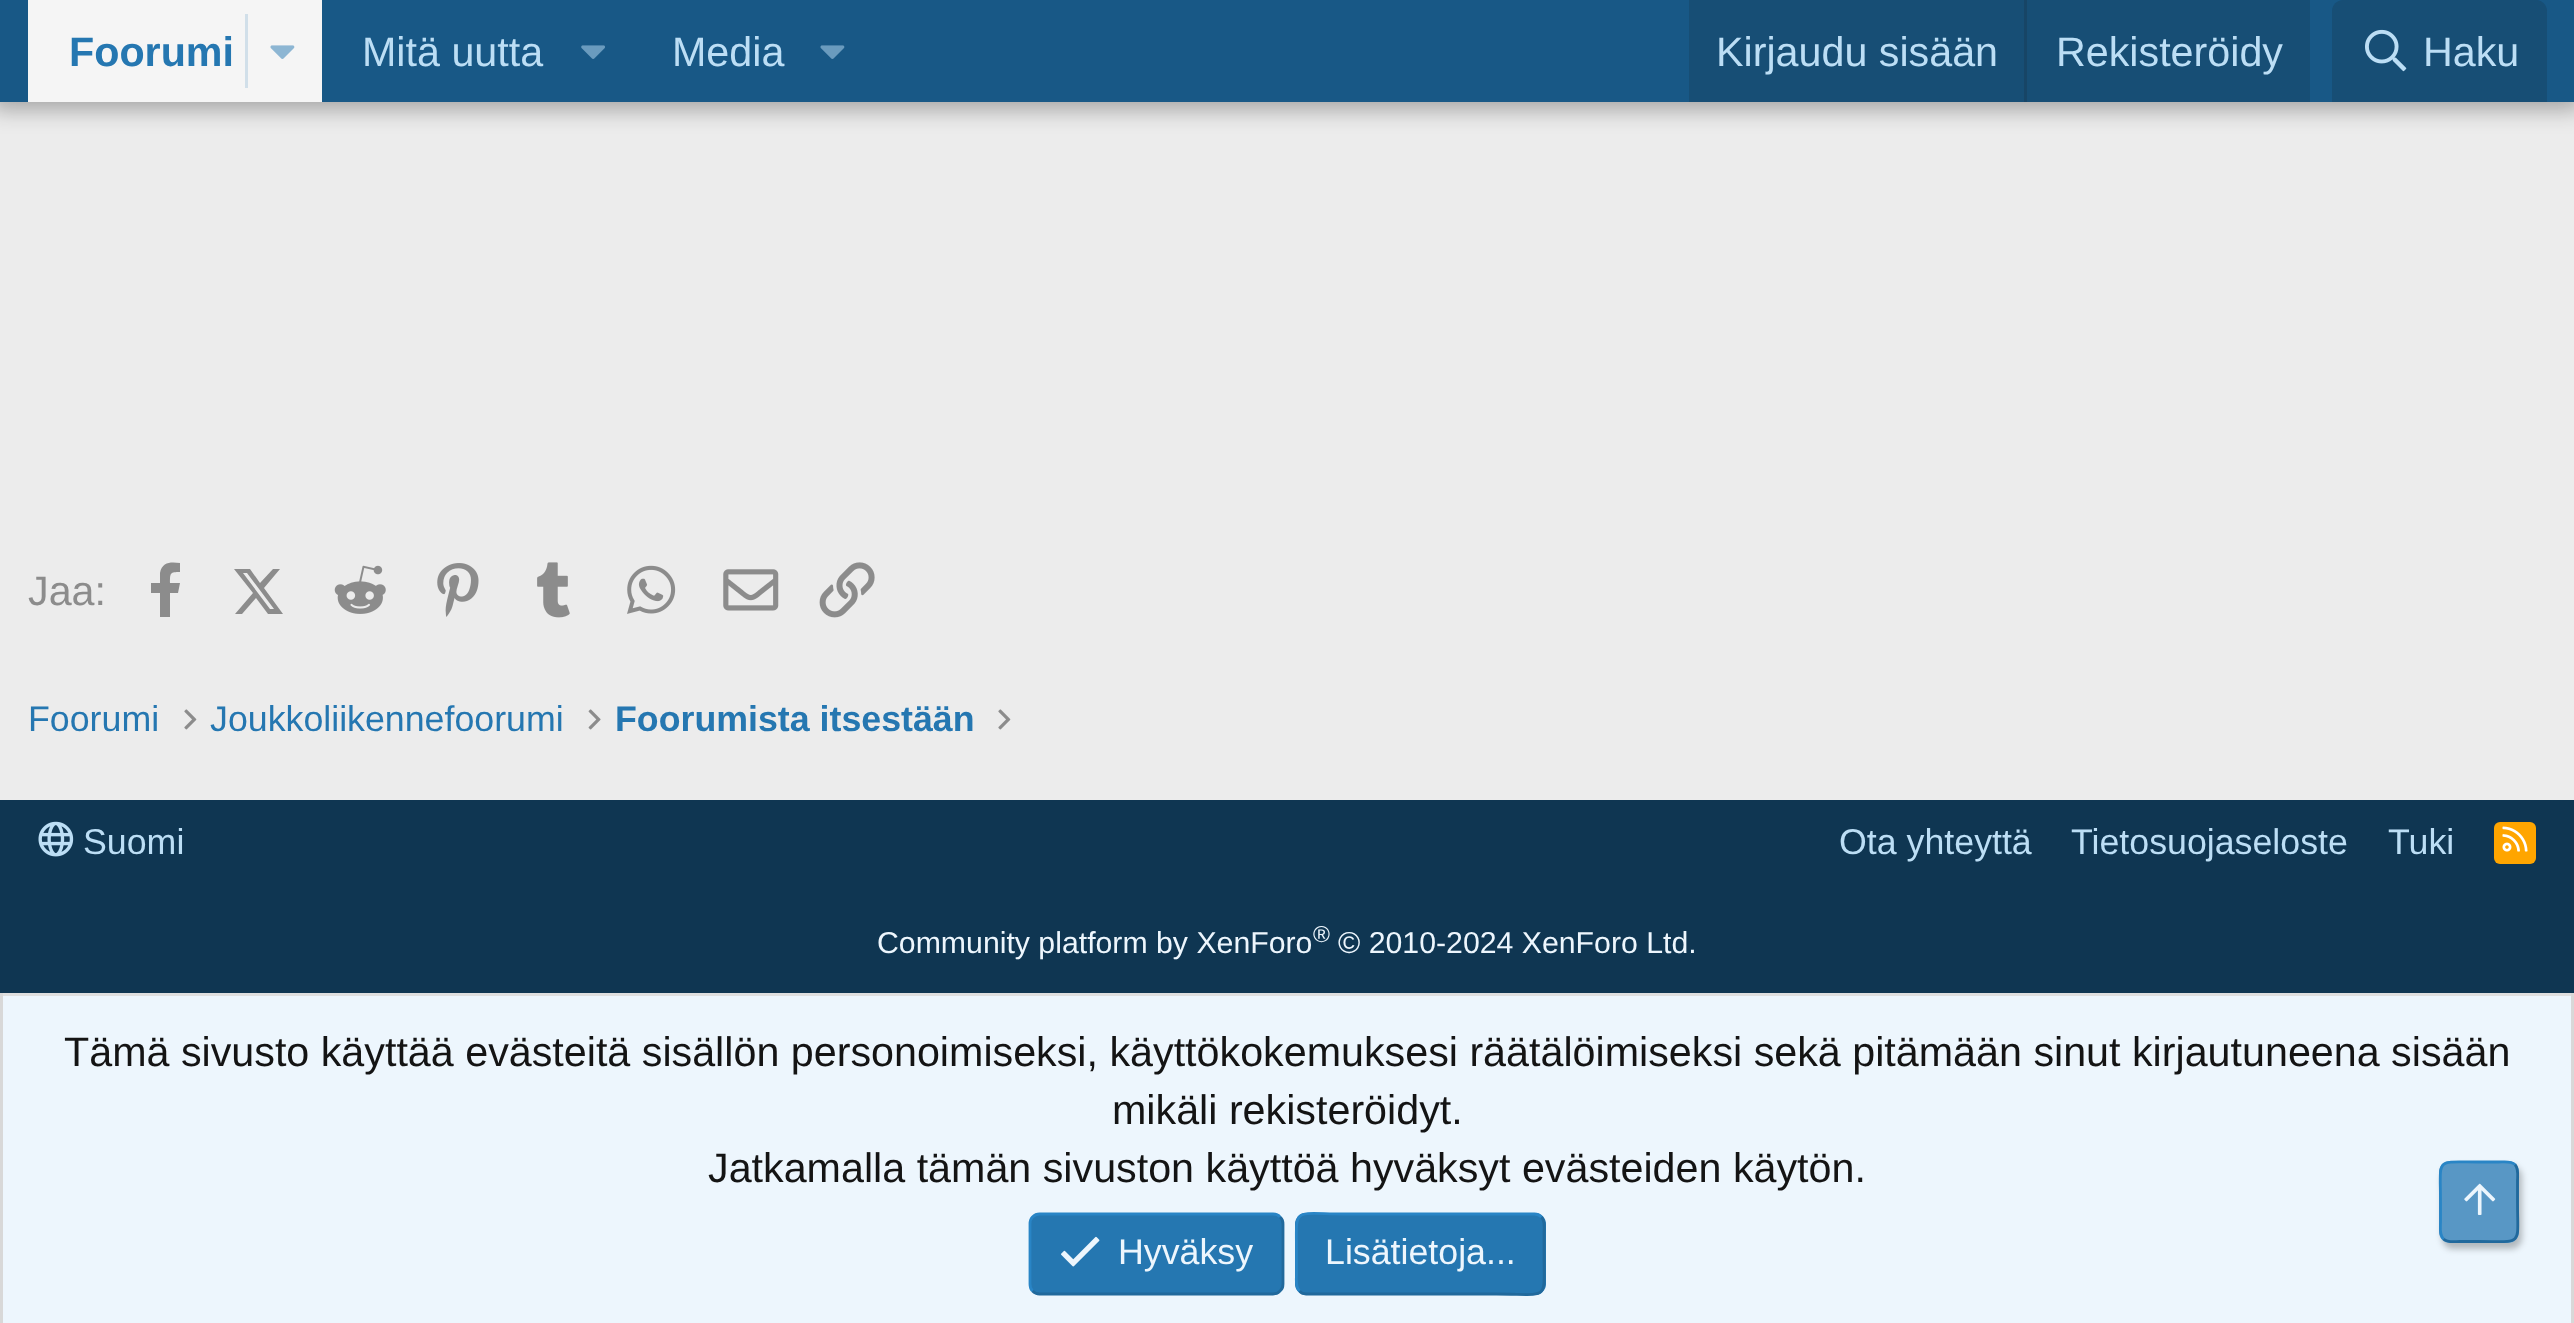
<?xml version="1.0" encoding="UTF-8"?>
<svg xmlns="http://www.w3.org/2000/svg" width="2574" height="1323">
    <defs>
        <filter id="blur1" x="-50%" y="-200%" width="200%" height="500%"><feGaussianBlur stdDeviation="11"/></filter>
        <clipPath id="clip1"><path d="M 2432 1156 H 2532 V 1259 H 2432 Z M 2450 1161 H 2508 C 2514 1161 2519 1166 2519 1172 V 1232 C 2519 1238 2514 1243 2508 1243 H 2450 C 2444 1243 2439 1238 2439 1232 V 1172 C 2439 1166 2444 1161 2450 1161 Z" clip-rule="evenodd"/></clipPath>
        <filter id="blur2" x="-50%" y="-200%" width="200%" height="500%"><feGaussianBlur stdDeviation="3"/></filter>
    </defs>
    <rect width="100%" height="100%" fill="#ECECEC"/>
    <rect x="-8" y="-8" width="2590" height="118" fill="#000000" fill-opacity="0.3" filter="url(#blur1)"/>
    <rect x="0" y="0" width="2574" height="102" fill="#185886"/>
    <rect x="28" y="0" width="294" height="102" fill="#F5F5F5"/>
    <text x="69" y="66" font-family="Liberation Sans" font-size="41.25" font-weight="700" fill="#2577B1">Foorumi</text>
    <rect x="245" y="14" width="3" height="74" fill="#D1DFE9"/>
    <image x="270" y="45" width="25" height="14" href="img_01.png"/>
    <text x="362" y="66" font-family="Liberation Sans" font-size="41.25" fill="#BCDEF5">Mitä uutta</text>
    <image x="581" y="45" width="24" height="14" href="img_02.png"/>
    <text x="672" y="66" font-family="Liberation Sans" font-size="41.25" fill="#BCDEF5">Media</text>
    <image x="820" y="45" width="25" height="14" href="img_03.png"/>
    <rect x="1689" y="0" width="621" height="102" fill="#174E75"/>
    <text x="1716" y="66" font-family="Liberation Sans" font-size="41.25" fill="#BCDEF5">Kirjaudu sisään</text>
    <rect x="2024" y="0" width="3" height="102" fill="#174566"/>
    <text x="2056" y="66" font-family="Liberation Sans" font-size="41.25" fill="#BCDEF5">Rekisteröidy</text>
    <path d="M 2343 0 H 2536 C 2542 0 2547 5 2547 11 V 102 H 2332 V 11 C 2332 5 2337 0 2343 0 Z" fill="#174E75"/>
    <image x="2365" y="29" width="42" height="43" href="img_04.png"/>
    <text x="2423" y="66" font-family="Liberation Sans" font-size="41.25" fill="#BCDEF5">Haku</text>
    <text x="28" y="605" font-family="Liberation Sans" font-size="41.25" fill="#8C8C8C">Jaa:</text>
    <path d="M 178 593 H 170 V 617 H 160 V 593 H 151 V 583 H 160 V 573 C 162 561 172 562 180 563 V 572 C 170 572 170 573 170 583 H 180 Z" fill="#8C8C8C"/>
    <path d="M 273 569 H 280 L 264 588 L 283 614 H 268 L 256 598 L 242 614 H 235 L 253 593 L 234 569 H 250 L 260 583 Z M 270 609 H 274 L 247 573 H 243 Z" fill="#8C8C8C"/>
    <image x="334" y="565" width="52" height="49" href="img_05.png"/>
    <image x="437" y="563" width="42" height="54" href="img_06.png"/>
    <image x="537" y="562" width="33" height="56" href="img_07.png"/>
    <image x="627" y="565" width="49" height="49" href="img_08.png"/>
    <image x="723" y="569" width="56" height="42" href="img_09.png"/>
    <image x="819" y="562" width="56" height="56" href="img_10.png"/>
    <text x="28" y="731" font-family="Liberation Sans" font-size="35.75" fill="#2577B1">Foorumi</text>
    <image x="184" y="709" width="13" height="21" href="img_11.png"/>
    <text x="210" y="731" font-family="Liberation Sans" font-size="35.75" fill="#2577B1">Joukkoliikennefoorumi</text>
    <image x="588" y="709" width="13" height="21" href="img_12.png"/>
    <text x="615" y="731" font-family="Liberation Sans" font-size="35.75" font-weight="700" fill="#2577B1">Foorumista itsestään</text>
    <image x="998" y="709" width="13" height="21" href="img_11.png"/>
    <rect x="0" y="800" width="2574" height="193" fill="#0F3652"/>
    <image x="38" y="821" width="36" height="36" href="img_13.png"/>
    <text x="83" y="854" font-family="Liberation Sans" font-size="35.75" fill="#BCDEF5">Suomi</text>
    <text x="1839" y="854" font-family="Liberation Sans" font-size="35.75" fill="#BCDEF5">Ota yhteyttä</text>
    <text x="2071" y="854" font-family="Liberation Sans" font-size="35.75" fill="#BCDEF5">Tietosuojaseloste</text>
    <text x="2388" y="854" font-family="Liberation Sans" font-size="35.75" fill="#BCDEF5">Tuki</text>
    <rect x="2494" y="822" width="42" height="42" rx="6" fill="#FFA500"/>
    <image x="2502" y="826" width="26" height="26" href="img_14.png"/>
    <text x="877" y="953" font-family="Liberation Sans" font-size="30.25" fill="#EDF6FD">Community platform by XenForo</text>
    <text x="1313" y="942" font-family="Liberation Sans" font-size="23" fill="#EDF6FD">®</text>
    <text x="1338" y="953" font-family="Liberation Sans" font-size="30.25" fill="#EDF6FD">© 2010-2024 XenForo Ltd.</text>
    <rect x="3" y="996" width="2568" height="327" fill="#EDF6FD"/>
    <rect x="0" y="993" width="2574" height="3" fill="#DFDFDF"/>
    <rect x="2571" y="993" width="3" height="330" fill="#D8D8D8"/>
    <rect x="0" y="993" width="3" height="330" fill="#D8D8D8"/>
    <text x="64" y="1066" font-family="Liberation Sans" font-size="41.25" fill="#141414">Tämä sivusto käyttää evästeitä sisällön personoimiseksi, käyttökokemuksesi räätälöimiseksi sekä pitämään sinut kirjautuneena sisään</text>
    <text x="1112" y="1124" font-family="Liberation Sans" font-size="41.25" fill="#141414">mikäli rekisteröidyt.</text>
    <text x="708" y="1182" font-family="Liberation Sans" font-size="41.25" fill="#141414">Jatkamalla tämän sivuston käyttöä hyväksyt evästeiden käytön.</text>
    <rect x="1029" y="1213" width="255" height="82" rx="11" fill="#2577B1"/>
    <path d="M 1280 1217 C 1282 1218.5 1283 1221 1283 1224 V 1284 C 1283 1287 1282 1289.5 1280 1291 C 1278.5 1293 1276 1294 1273 1294 H 1039.5 C 1037 1294 1034.5 1293 1032.5 1291" fill="none" stroke="#21699C" stroke-width="2.8"/>
    <path d="M 1032.5 1291 C 1031 1289.5 1030 1287 1030 1284 V 1224 C 1030 1221 1031 1218.5 1032.5 1217 C 1034.5 1215 1037 1214 1039.5 1214 H 1273 C 1276 1214 1278.5 1215 1280 1217" fill="none" stroke="#2985C6" stroke-width="2.8"/>
    <image x="1061" y="1236" width="39" height="31" href="img_15.png"/>
    <text x="1118" y="1264" font-family="Liberation Sans" font-size="35.75" fill="#EDF6FD">Hyväksy</text>
    <rect x="1295" y="1213" width="251" height="82" rx="11" fill="#2577B1"/>
    <path d="M 1541.5 1217 C 1545.5 1221.5 1544 1228.5 1544 1234 V 1254 C 1544 1302.5 1550 1294 1496.5 1294 H 1306 C 1303.5 1294 1301 1293 1299.5 1291" fill="none" stroke="#21699C" stroke-width="2.8"/>
    <path d="M 1299.5 1291 C 1295 1286.5 1296.5 1279.5 1296.5 1274 V 1254 C 1296.5 1205.5 1291 1214 1344.5 1214 H 1534.5 C 1537 1214 1539.5 1215 1541.5 1217" fill="none" stroke="#2985C6" stroke-width="2.8"/>
    <text x="1325" y="1264" font-family="Liberation Sans" font-size="35.75" fill="#EDF6FD">Lisätietoja...</text>
    <g clip-path="url(#clip1)">
        <rect x="2442" y="1166" width="80" height="83" rx="11" fill="#000000" fill-opacity="0.25" filter="url(#blur2)"/>
    </g>
    <rect x="2439" y="1161" width="80" height="82" rx="11" fill="#2577B1" fill-opacity="0.75"/>
    <path d="M 2515 1164.5 C 2519 1169 2517.5 1176.5 2517.5 1181.5 V 1202 C 2517.5 1247 2524 1241.5 2479 1241.5 H 2460 C 2454.5 1241.5 2447.5 1243 2443.5 1239" fill="none" stroke="#21699C" stroke-width="2.8"/>
    <path d="M 2443.5 1239 C 2439 1234.5 2440.5 1227 2440.5 1222 V 1202 C 2440.5 1156.5 2434.5 1162 2479 1162 H 2498.5 C 2503.5 1162 2510.5 1160.5 2515 1164.5" fill="none" stroke="#2985C6" stroke-width="2.8"/>
    <image x="2464" y="1183" width="32" height="32" href="img_16.png"/>
</svg>
